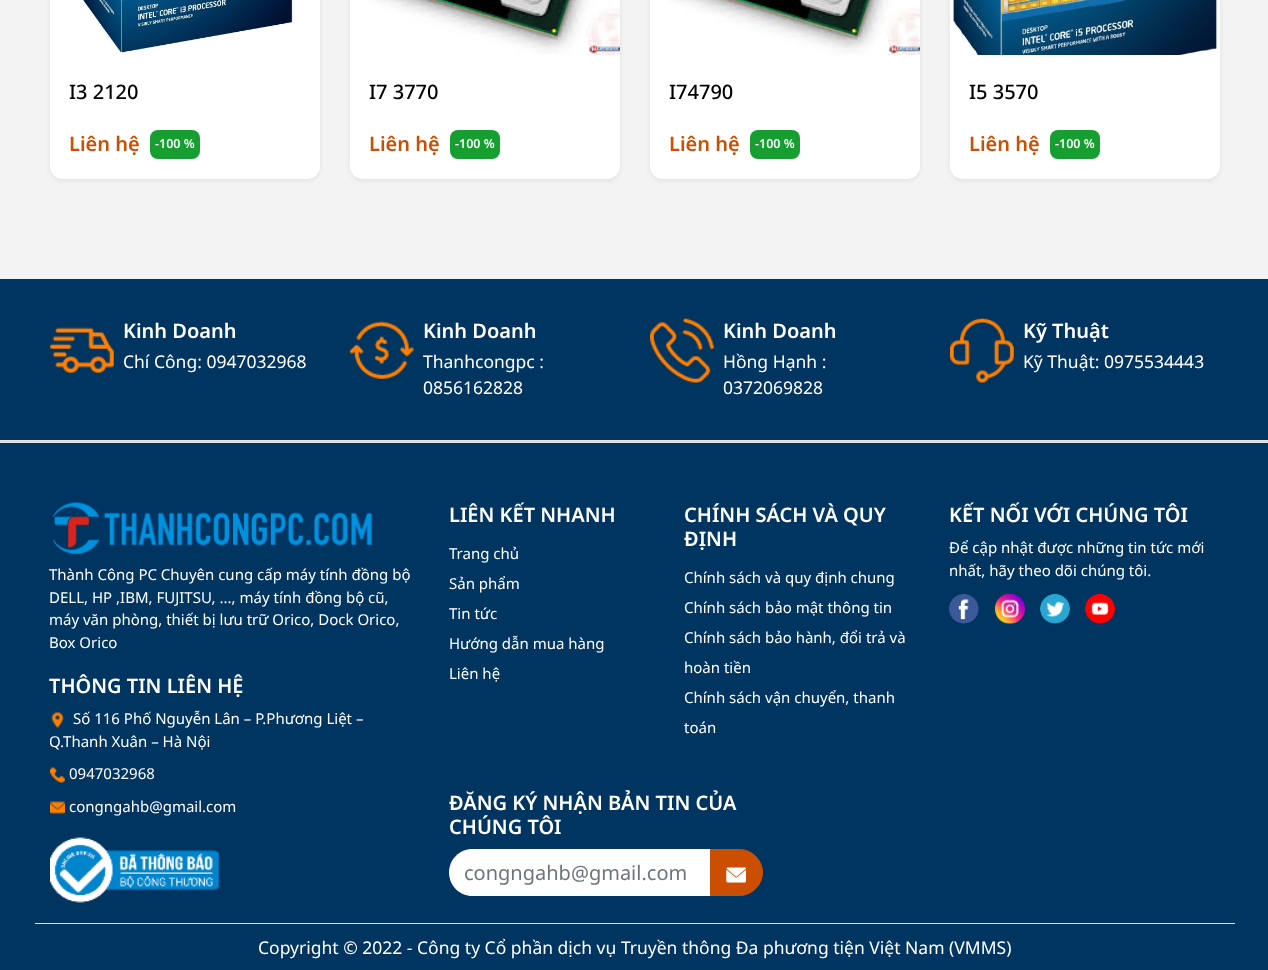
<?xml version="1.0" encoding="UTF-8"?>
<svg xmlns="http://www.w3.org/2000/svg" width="1268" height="970">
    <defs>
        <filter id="blur1" x="-50%" y="-200%" width="200%" height="500%"><feGaussianBlur stdDeviation="2.5"/></filter>
    </defs>
    <rect width="100%" height="100%" fill="#F3F3F3"/>
    <rect x="50" y="-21" width="270" height="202" rx="13" fill="#000000" fill-opacity="0.07" filter="url(#blur1)"/>
    <rect x="50" y="-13" width="270" height="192" rx="13" fill="#FFFFFF"/>
    <image x="80" y="0" width="213" height="53" href="img_01.png"/>
    <text x="69" y="99" font-family="Noto Sans" font-size="20" font-weight="500" fill="#000000">I3 2120</text>
    <text x="69" y="151" font-family="Noto Sans" font-size="20" font-weight="600" fill="#CC4E00">Liên hệ</text>
    <rect x="150" y="130" width="50" height="29" rx="8" fill="#169E30"/>
    <text x="155" y="148" font-family="Noto Sans" font-size="12.5" font-weight="600" fill="#FFFFFF">-100 %</text>
    <rect x="350" y="-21" width="270" height="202" rx="13" fill="#000000" fill-opacity="0.07" filter="url(#blur1)"/>
    <rect x="350" y="-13" width="270" height="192" rx="13" fill="#FFFFFF"/>
    <image x="368" y="0" width="252" height="55" href="img_02.png"/>
    <text x="369" y="99" font-family="Noto Sans" font-size="20" font-weight="500" fill="#000000">I7 3770</text>
    <text x="369" y="151" font-family="Noto Sans" font-size="20" font-weight="600" fill="#CC4E00">Liên hệ</text>
    <rect x="450" y="130" width="50" height="29" rx="8" fill="#169E30"/>
    <text x="455" y="148" font-family="Noto Sans" font-size="12.5" font-weight="600" fill="#FFFFFF">-100 %</text>
    <rect x="650" y="-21" width="270" height="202" rx="13" fill="#000000" fill-opacity="0.07" filter="url(#blur1)"/>
    <rect x="650" y="-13" width="270" height="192" rx="13" fill="#FFFFFF"/>
    <image x="668" y="0" width="252" height="55" href="img_02.png"/>
    <text x="669" y="99" font-family="Noto Sans" font-size="20" font-weight="500" fill="#000000">I74790</text>
    <text x="669" y="151" font-family="Noto Sans" font-size="20" font-weight="600" fill="#CC4E00">Liên hệ</text>
    <rect x="750" y="130" width="50" height="29" rx="8" fill="#169E30"/>
    <text x="755" y="148" font-family="Noto Sans" font-size="12.5" font-weight="600" fill="#FFFFFF">-100 %</text>
    <rect x="950" y="-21" width="270" height="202" rx="13" fill="#000000" fill-opacity="0.07" filter="url(#blur1)"/>
    <rect x="950" y="-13" width="270" height="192" rx="13" fill="#FFFFFF"/>
    <image x="950" y="0" width="270" height="55" href="img_03.png"/>
    <text x="969" y="99" font-family="Noto Sans" font-size="20" font-weight="500" fill="#000000">I5 3570</text>
    <text x="969" y="151" font-family="Noto Sans" font-size="20" font-weight="600" fill="#CC4E00">Liên hệ</text>
    <rect x="1050" y="130" width="50" height="29" rx="8" fill="#169E30"/>
    <text x="1055" y="148" font-family="Noto Sans" font-size="12.5" font-weight="600" fill="#FFFFFF">-100 %</text>
    <rect x="0" y="279" width="1268" height="691" fill="#003461"/>
    <rect x="0" y="440" width="1268" height="3" fill="#DEE2E6"/>
    <image x="50" y="327" width="64" height="47" href="img_04.png"/>
    <text x="123" y="338" font-family="Noto Sans" font-size="20" font-weight="600" fill="#FFFFFF">Kinh Doanh</text>
    <text x="123" y="368" font-family="Noto Sans" font-size="17.5" fill="#FFFFFF">Chí Công: 0947032968</text>
    <image x="350" y="321" width="64" height="58" href="img_05.png"/>
    <text x="423" y="338" font-family="Noto Sans" font-size="20" font-weight="600" fill="#FFFFFF">Kinh Doanh</text>
    <text font-family="Noto Sans" font-size="17.5" fill="#FFFFFF">
        <tspan x="423" y="368">Thanhcongpc :</tspan>
        <tspan x="423" y="394">0856162828</tspan>
    </text>
    <image x="650" y="318" width="64" height="65" href="img_06.png"/>
    <text x="723" y="338" font-family="Noto Sans" font-size="20" font-weight="600" fill="#FFFFFF">Kinh Doanh</text>
    <text font-family="Noto Sans" font-size="17.5" fill="#FFFFFF">
        <tspan x="723" y="368">Hồng Hạnh :</tspan>
        <tspan x="723" y="394">0372069828</tspan>
    </text>
    <image x="950" y="318" width="64" height="65" href="img_07.png"/>
    <text x="1023" y="338" font-family="Noto Sans" font-size="20" font-weight="600" fill="#FFFFFF">Kỹ Thuật</text>
    <text x="1023" y="368" font-family="Noto Sans" font-size="17.5" fill="#FFFFFF">Kỹ Thuật: 0975534443</text>
    <text x="449" y="522" font-family="Noto Sans" font-size="20" font-weight="600" fill="#FFFFFF">LIÊN KẾT NHANH</text>
    <text x="449" y="559" font-family="Noto Sans" font-size="15" fill="#FFFFFF">Trang chủ</text>
    <text x="449" y="589" font-family="Noto Sans" font-size="15" fill="#FFFFFF">Sản phẩm</text>
    <text x="449" y="619" font-family="Noto Sans" font-size="15" fill="#FFFFFF">Tin tức</text>
    <text x="449" y="649" font-family="Noto Sans" font-size="15" fill="#FFFFFF">Hướng dẫn mua hàng</text>
    <text x="449" y="679" font-family="Noto Sans" font-size="15" fill="#FFFFFF">Liên hệ</text>
    <text font-family="Noto Sans" font-size="20" font-weight="600" fill="#FFFFFF">
        <tspan x="684" y="522">CHÍNH SÁCH VÀ QUY</tspan>
        <tspan x="684" y="546">ĐỊNH</tspan>
    </text>
    <text x="684" y="583" font-family="Noto Sans" font-size="15" fill="#FFFFFF">Chính sách và quy định chung</text>
    <text x="684" y="613" font-family="Noto Sans" font-size="15" fill="#FFFFFF">Chính sách bảo mật thông tin</text>
    <text x="684" y="643" font-family="Noto Sans" font-size="15" fill="#FFFFFF">Chính sách bảo hành, đổi trả và</text>
    <text x="684" y="673" font-family="Noto Sans" font-size="15" fill="#FFFFFF">hoàn tiền</text>
    <text x="684" y="703" font-family="Noto Sans" font-size="15" fill="#FFFFFF">Chính sách vận chuyển, thanh</text>
    <text x="684" y="733" font-family="Noto Sans" font-size="15" fill="#FFFFFF">toán</text>
    <text font-family="Noto Sans" font-size="20" font-weight="600" fill="#FFFFFF">
        <tspan x="449" y="810">ĐĂNG KÝ NHẬN BẢN TIN CỦA</tspan>
        <tspan x="449" y="834">CHÚNG TÔI</tspan>
    </text>
    <path d="M 472.5 849 H 711 V 896 H 472.5 C 459.5 896 449 885.5 449 872.5 C 449 859.5 459.5 849 472.5 849 Z" fill="#FFFFFF"/>
    <text x="464" y="880" font-family="Noto Sans" font-size="20" fill="#6C757D">congngahb@gmail.com</text>
    <path d="M 710.5 849.5 H 739.5 C 752 849.5 762.5 860 762.5 872.5 C 762.5 885 752 895.5 739.5 895.5 H 710.5 Z" fill="#CC4E00" stroke="#CC4E00"/>
    <image x="726" y="867" width="20" height="16" href="img_08.png"/>
    <text x="949" y="522" font-family="Noto Sans" font-size="20" font-weight="600" fill="#FFFFFF">KẾT NỐI VỚI CHÚNG TÔI</text>
    <text font-family="Noto Sans" font-size="15" fill="#FFFFFF">
        <tspan x="949" y="553">Để cập nhật được những tin tức mới</tspan>
        <tspan x="949" y="576">nhất, hãy theo dõi chúng tôi.</tspan>
    </text>
    <image x="949" y="594" width="30" height="30" href="img_09.png"/>
    <image x="995" y="594" width="30" height="30" href="img_10.png"/>
    <image x="1040" y="594" width="30" height="30" href="img_11.png"/>
    <image x="1085" y="594" width="30" height="30" href="img_12.png"/>
    <image x="53" y="502" width="320" height="52" href="img_13.png"/>
    <text font-family="Noto Sans" font-size="15" fill="#FFFFFF">
        <tspan x="49" y="580">Thành Công PC Chuyên cung cấp máy tính đồng bộ</tspan>
        <tspan x="49" y="603">DELL, HP ,IBM, FUJITSU, ..., máy tính đồng bộ cũ,</tspan>
        <tspan x="49" y="625">máy văn phòng, thiết bị lưu trữ Orico, Dock Orico,</tspan>
        <tspan x="49" y="648">Box Orico</tspan>
    </text>
    <text x="49" y="693" font-family="Noto Sans" font-size="20" font-weight="600" fill="#FFFFFF">THÔNG TIN LIÊN HỆ</text>
    <image x="51" y="712" width="13" height="16" href="img_14.png"/>
    <text x="73" y="724" font-family="Noto Sans" font-size="15" fill="#FFFFFF">Số 116 Phố Nguyễn Lân – P.Phương Liệt –</text>
    <text x="49" y="747" font-family="Noto Sans" font-size="15" fill="#FFFFFF">Q.Thanh Xuân – Hà Nội</text>
    <image x="50" y="767" width="15" height="16" href="img_15.png"/>
    <text x="69" y="779" font-family="Noto Sans" font-size="15" fill="#FFFFFF">0947032968</text>
    <image x="50" y="801" width="15" height="13" href="img_16.png"/>
    <text x="69" y="812" font-family="Noto Sans" font-size="15" fill="#FFFFFF">congngahb@gmail.com</text>
    <image x="50" y="837" width="169" height="66" href="img_17.png"/>
    <rect x="35" y="923" width="1200" height="1" fill="#DEE2E6"/>
    <text x="258" y="954" font-family="Noto Sans" font-size="17.5" fill="#FFFFFF">Copyright © 2022 - Công ty Cổ phần dịch vụ Truyền thông Đa phương tiện Việt Nam (VMMS)</text>
</svg>
